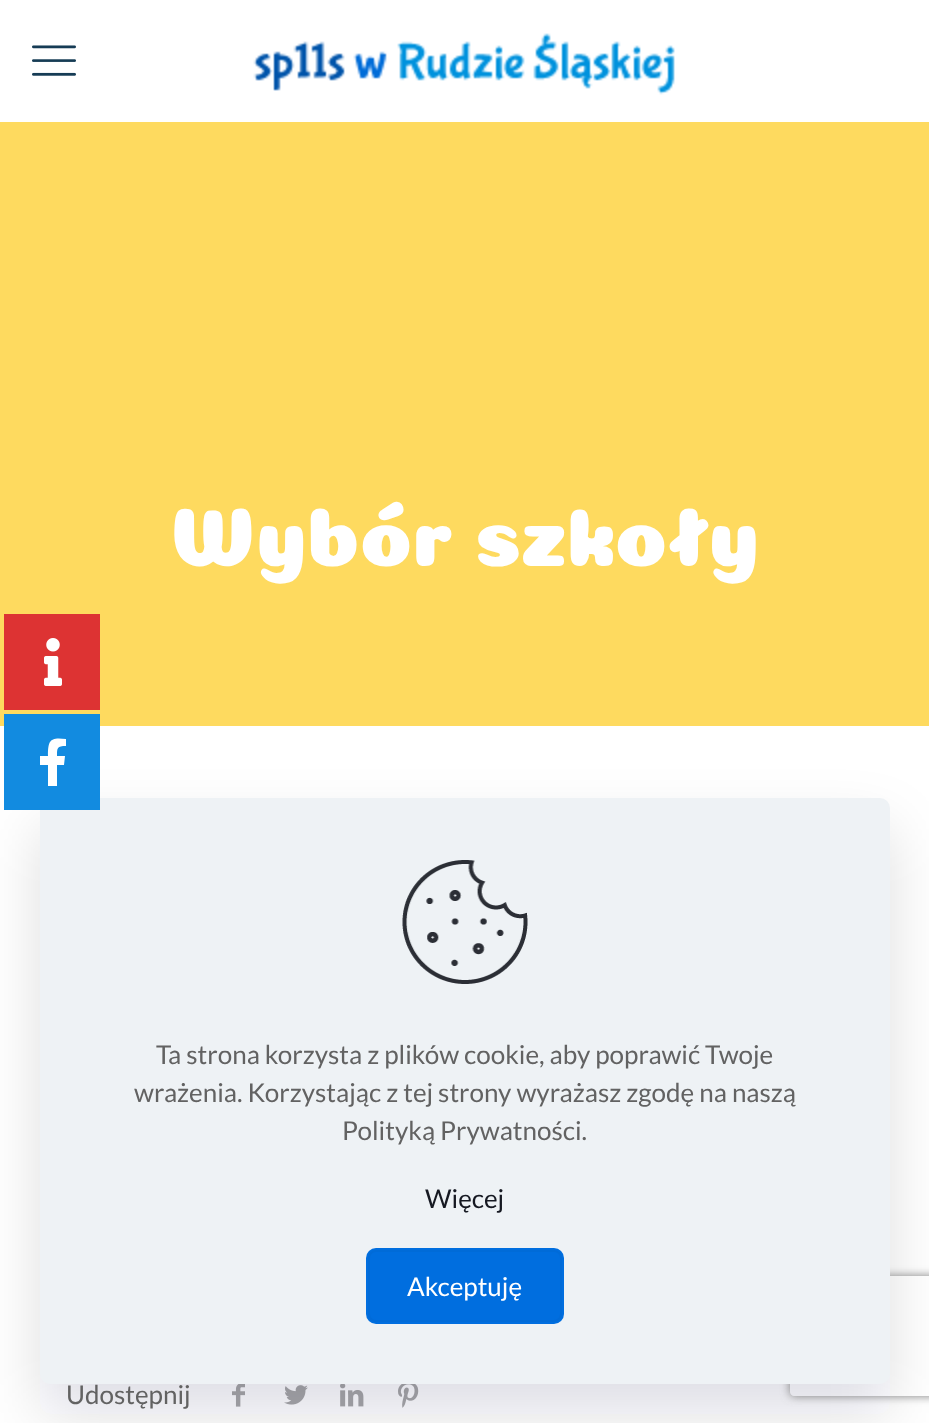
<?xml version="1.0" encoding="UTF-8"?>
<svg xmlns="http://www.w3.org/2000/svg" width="929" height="1423">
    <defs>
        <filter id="blur1" x="-50%" y="-200%" width="200%" height="500%"><feGaussianBlur stdDeviation="30"/></filter>
        <clipPath id="clip1"><path d="M 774 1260 H 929 V 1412 H 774 Z M 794 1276 H 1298 C 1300 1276 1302 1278 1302 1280 V 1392 C 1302 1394 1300 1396 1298 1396 H 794 C 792 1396 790 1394 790 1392 V 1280 C 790 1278 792 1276 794 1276 Z" clip-rule="evenodd"/></clipPath>
        <filter id="blur2" x="-50%" y="-200%" width="200%" height="500%"><feGaussianBlur stdDeviation="5"/></filter>
    </defs>
    <rect width="100%" height="100%" fill="#FFFFFF"/>
    <rect x="0" y="122" width="929" height="604" fill="#FEDA5F"/>
    <rect x="4" y="614" width="96" height="96" fill="#DD3333"/>
    <image x="44" y="638" width="18" height="48" href="img_01.png"/>
    <image x="232" y="1384" width="13" height="23" href="img_04.png"/>
    <image x="284" y="1385" width="24" height="20" href="img_05.png"/>
    <image x="340" y="1384" width="24" height="23" href="img_06.png"/>
    <image x="398" y="1384" width="21" height="24" href="img_07.png"/>
    <rect x="40" y="828" width="850" height="586" rx="10" fill="#010727" fill-opacity="0.13" filter="url(#blur1)"/>
    <g clip-path="url(#clip1)">
        <rect x="790" y="1276" width="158" height="120" rx="4" fill="#808080" filter="url(#blur2)"/>
    </g>
    <rect x="40" y="798" width="850" height="586" rx="10" fill="#EEF2F5"/>
    <rect x="4" y="714" width="96" height="96" fill="#128BE0"/>
    <path d="M 64 765 H 57 V 786 H 48 V 765 H 40 V 756 H 48 C 48 740 50 737 66 739 V 746 C 57 746 57 748 57 756 H 65 Z" fill="#FFFFFF"/>
    <image x="32" y="45" width="44" height="31" href="img_02.png"/>
    <image x="253" y="33" width="422" height="62" href="img_03.png"/>
    <text x="170" y="566" font-family="Coiny" font-size="84" fill="#FFFFFF">Wybór szkoły</text>
    <text x="66" y="1404" font-family="Lato" font-size="26" fill="#626262">Udostępnij</text>
    <image x="402" y="860" width="126" height="124" href="img_08.png"/>
    <text x="156" y="1064" font-family="Lato" font-size="26" fill="#626262">Ta strona korzysta z plików cookie, aby poprawić Twoje</text>
    <text x="134" y="1102" font-family="Lato" font-size="26" fill="#626262">wrażenia. Korzystając z tej strony wyrażasz zgodę na naszą</text>
    <text x="342" y="1140" font-family="Lato" font-size="26" fill="#626262">Polityką Prywatności.</text>
    <text x="425" y="1208" font-family="Lato" font-size="26" fill="#161922">Więcej</text>
    <rect x="366" y="1248" width="198" height="76" rx="10" fill="#006EDF"/>
    <rect x="369" y="1251" width="192" height="70" rx="7" fill="none" stroke="#006BD8" stroke-width="2"/>
    <text x="407" y="1296" font-family="Lato" font-size="26" fill="#FFFFFF">Akceptuję</text>
</svg>
